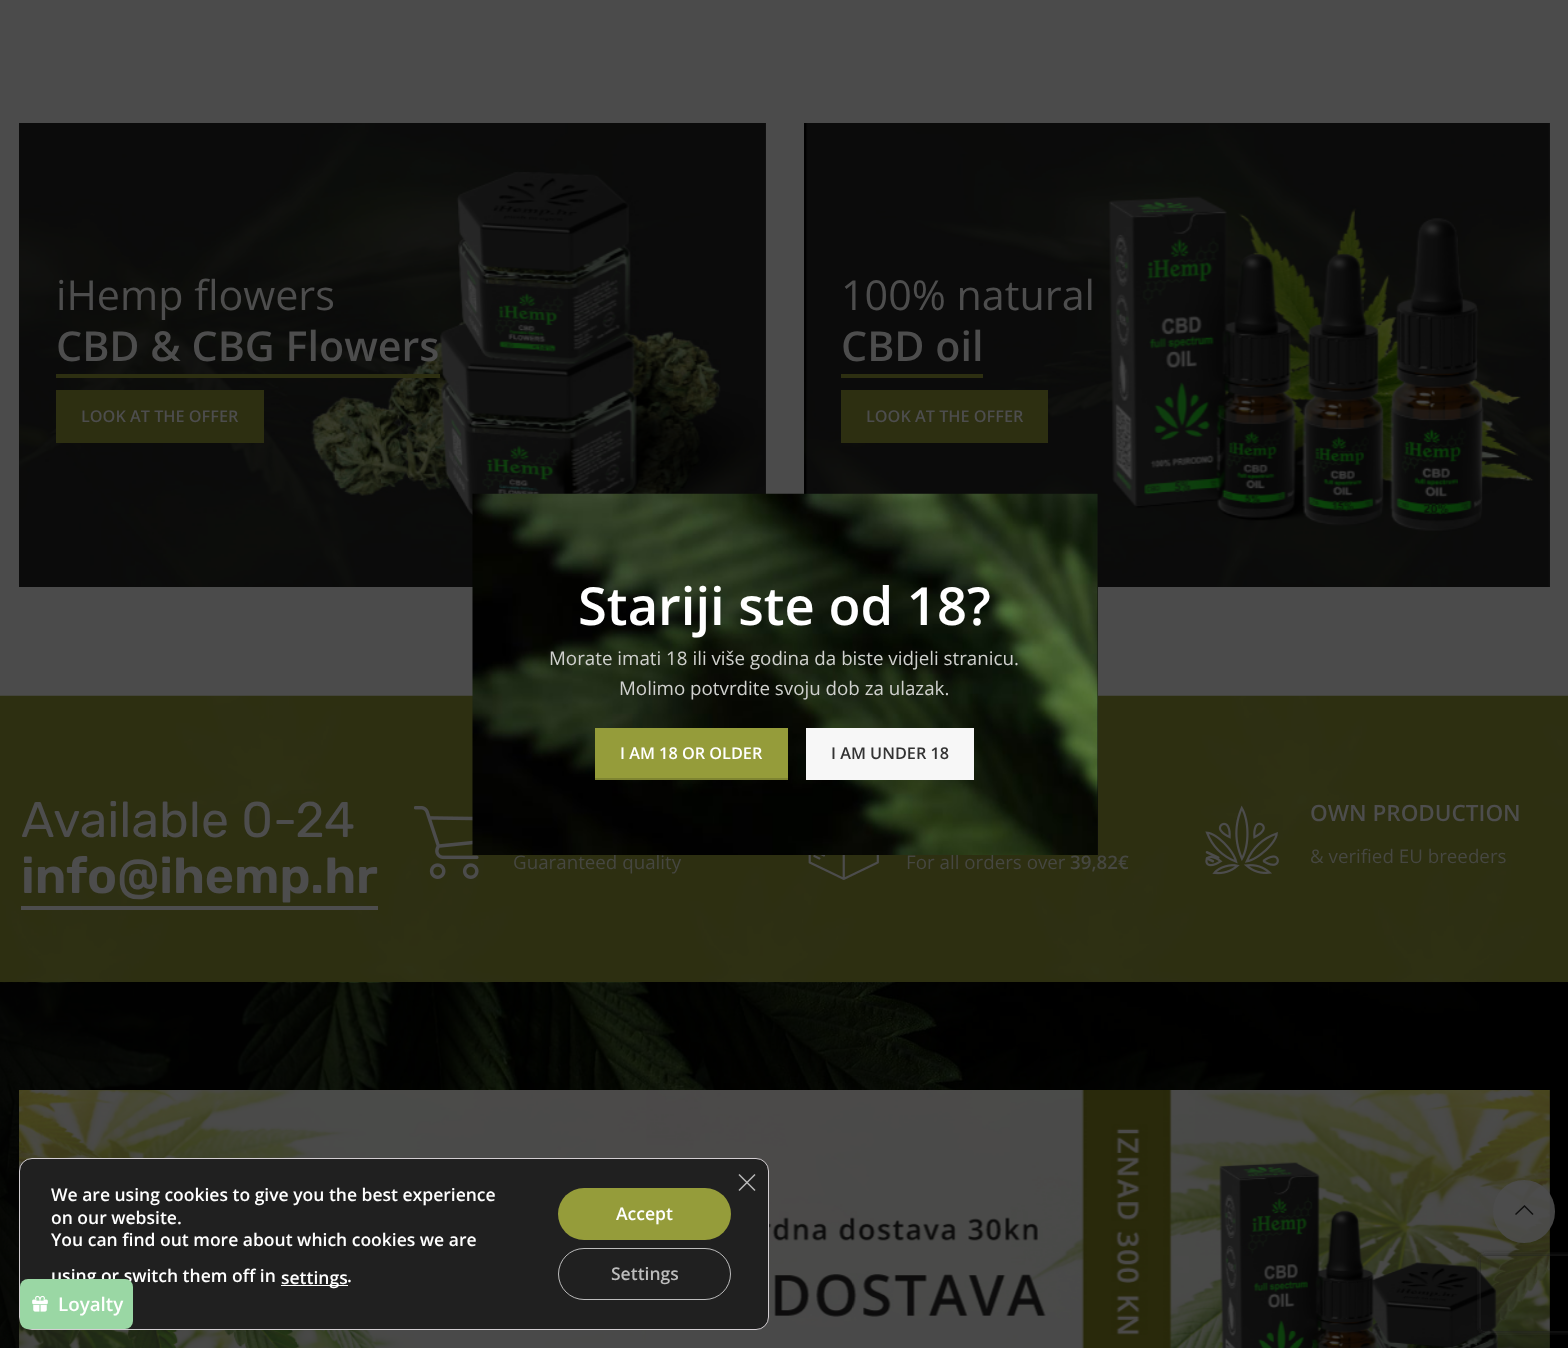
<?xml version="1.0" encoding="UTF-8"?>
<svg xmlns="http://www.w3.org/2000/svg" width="1568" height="1348">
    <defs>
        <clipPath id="clip1"><path d="M 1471 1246 H 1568 V 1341 H 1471 Z M 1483.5 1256 H 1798.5 C 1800 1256 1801 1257 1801 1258.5 V 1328.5 C 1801 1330 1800 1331 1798.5 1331 H 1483.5 C 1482 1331 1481 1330 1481 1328.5 V 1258.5 C 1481 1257 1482 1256 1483.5 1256 Z" clip-rule="evenodd"/></clipPath>
        <filter id="blur1" x="-50%" y="-200%" width="200%" height="500%"><feGaussianBlur stdDeviation="3"/></filter>
    </defs>
    <rect width="100%" height="100%" fill="#4B4B4B"/>
    <image x="19" y="123" width="747" height="464" href="img_01.png"/>
    <text x="56" y="310" font-family="Open Sans" font-size="41.25" fill="#4D4D4D">iHemp flowers</text>
    <text x="56" y="361" font-family="Open Sans" font-size="41.25" font-weight="600" fill="#4D4D4D">CBD &amp; CBG Flowers</text>
    <rect x="56" y="374" width="384" height="4" fill="#2D2F11"/>
    <rect x="56" y="390" width="208" height="53" fill="#2D2F11"/>
    <text x="81" y="422" font-family="Open Sans" font-size="16.25" font-weight="600" fill="#4D4D4D">LOOK AT THE OFFER</text>
    <image x="804" y="123" width="746" height="464" href="img_02.png"/>
    <text x="841" y="310" font-family="Open Sans" font-size="41.25" fill="#4D4D4D">100% natural</text>
    <text x="841" y="361" font-family="Open Sans" font-size="41.25" font-weight="600" fill="#4D4D4D">CBD oil</text>
    <rect x="841" y="374" width="142" height="4" fill="#2D2F11"/>
    <rect x="841" y="390" width="207" height="53" fill="#2D2F11"/>
    <text x="866" y="422" font-family="Open Sans" font-size="16.25" font-weight="600" fill="#4D4D4D">LOOK AT THE OFFER</text>
    <image x="0" y="695" width="1568" height="287" href="img_03.png"/>
    <text x="21" y="837" font-family="Rubik" font-size="50" fill="#4D4D4D">Available 0-24</text>
    <text x="21" y="893" font-family="Rubik" font-size="50" font-weight="600" fill="#4D4D4D">info@ihemp.hr</text>
    <rect x="21" y="906" width="357" height="4" fill="#4D4D4D"/>
    <image x="414" y="806" width="65" height="73" href="img_04.png"/>
    <text x="513" y="869" font-family="Open Sans" font-size="18.75" fill="#464741">Guaranteed quality</text>
    <image x="808" y="855" width="71" height="25" href="img_05.png"/>
    <text x="906" y="869" font-family="Open Sans" font-size="18.75" fill="#464741">For all orders over</text>
    <text x="1070" y="869" font-family="Open Sans" font-size="18.75" font-weight="600" fill="#464741">39,82€</text>
    <image x="1205" y="805" width="74" height="70" href="img_06.png"/>
    <text x="1310" y="821" font-family="Open Sans" font-size="22.5" font-weight="600" fill="#4D4D4D">OWN PRODUCTION</text>
    <text x="1310" y="863" font-family="Open Sans" font-size="18.75" fill="#464741">&amp; verified EU breeders</text>
    <image x="0" y="982" width="1568" height="366" href="img_07.png"/>
    <image x="19" y="1090" width="1531" height="258" href="img_08.png"/>
    <rect x="1097" y="494" width="1" height="361" fill="#0F0F0F"/>
    <image x="472" y="493" width="626" height="362" href="img_09.png"/>
    <text x="578" y="625" font-family="Open Sans" font-size="52.5" font-weight="600" fill="#FFFFFF">Stariji ste od 18?</text>
    <text x="549" y="665" font-family="Open Sans" font-size="18.75" fill="#D0D1CE">Morate imati 18 ili više godina da biste vidjeli stranicu.</text>
    <text x="619" y="695" font-family="Open Sans" font-size="18.75" fill="#D0D1CE">Molimo potvrdite svoju dob za ulazak.</text>
    <rect x="595" y="728" width="193" height="52" fill="#959C3A"/>
    <rect x="595" y="778" width="193" height="2" fill="#000000" fill-opacity="0.15"/>
    <text x="620" y="759" font-family="Open Sans" font-size="16.25" font-weight="600" fill="#FFFFFF">I AM 18 OR OLDER</text>
    <rect x="806" y="728" width="168" height="52" fill="#F7F7F7"/>
    <text x="831" y="759" font-family="Open Sans" font-size="16.25" font-weight="600" fill="#333333">I AM UNDER 18</text>
    <rect x="19.5" y="1158.5" width="749" height="171" rx="12.5" fill="#202020" stroke="#D3CED2"/>
    <text font-family="Open Sans" font-size="17.5" font-weight="600" fill="#FFFFFF">
        <tspan x="51" y="1201">We are using cookies to give you the best experience</tspan>
        <tspan x="51" y="1224">on our website.</tspan>
        <tspan x="51" y="1246">You can find out more about which cookies we are</tspan>
    </text>
    <text x="51" y="1282" font-family="Open Sans" font-size="17.5" font-weight="600" fill="#FFFFFF">using or switch them off in</text>
    <rect x="281" y="1285" width="67" height="1" fill="#FFFFFF"/>
    <text x="281" y="1284" font-family="Open Sans" font-size="17.5" font-weight="600" fill="#FFFFFF">settings</text>
    <text x="347" y="1282" font-family="Open Sans" font-size="17.5" font-weight="600" fill="#FFFFFF">.</text>
    <path d="M 754.5 1174 L 755.5 1175 L 739.5 1191 L 738.5 1190 Z" fill="#BCBCBC"/>
    <path d="M 738.5 1175 L 739.5 1174 L 755.5 1190 L 754.5 1191 Z" fill="#BCBCBC"/>
    <rect x="558" y="1188" width="173" height="52" rx="26" fill="#959C3A"/>
    <text x="616" y="1220" font-family="Open Sans" font-size="17.5" font-weight="600" fill="#FFFFFF">Accept</text>
    <rect x="558.5" y="1248.5" width="172" height="51" rx="25.5" fill="none" stroke="#BCBCBC"/>
    <text x="611" y="1280" font-family="Open Sans" font-size="17.5" font-weight="600" fill="#BCBCBC">Settings</text>
    <rect x="1493" y="1180" width="62" height="63" rx="31" fill="#4D4D4D" fill-opacity="0.9"/>
    <path d="M 1532.5 1215 L 1533.5 1214 L 1524.5 1205 L 1515 1214 L 1516 1215 L 1524.5 1207 Z" fill="#0F0F0F"/>
    <rect x="20" y="1279" width="113" height="50" rx="8" fill="#9AD7A4"/>
    <image x="32" y="1295" width="16" height="17" href="img_10.png"/>
    <text x="58" y="1311" font-family="Open Sans" font-size="18.75" font-weight="600" fill="#FFFFFF">Loyalty</text>
    <g clip-path="url(#clip1)">
        <rect x="1481" y="1256" width="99" height="75" rx="2.5" fill="#262626" filter="url(#blur1)"/>
    </g>
</svg>
